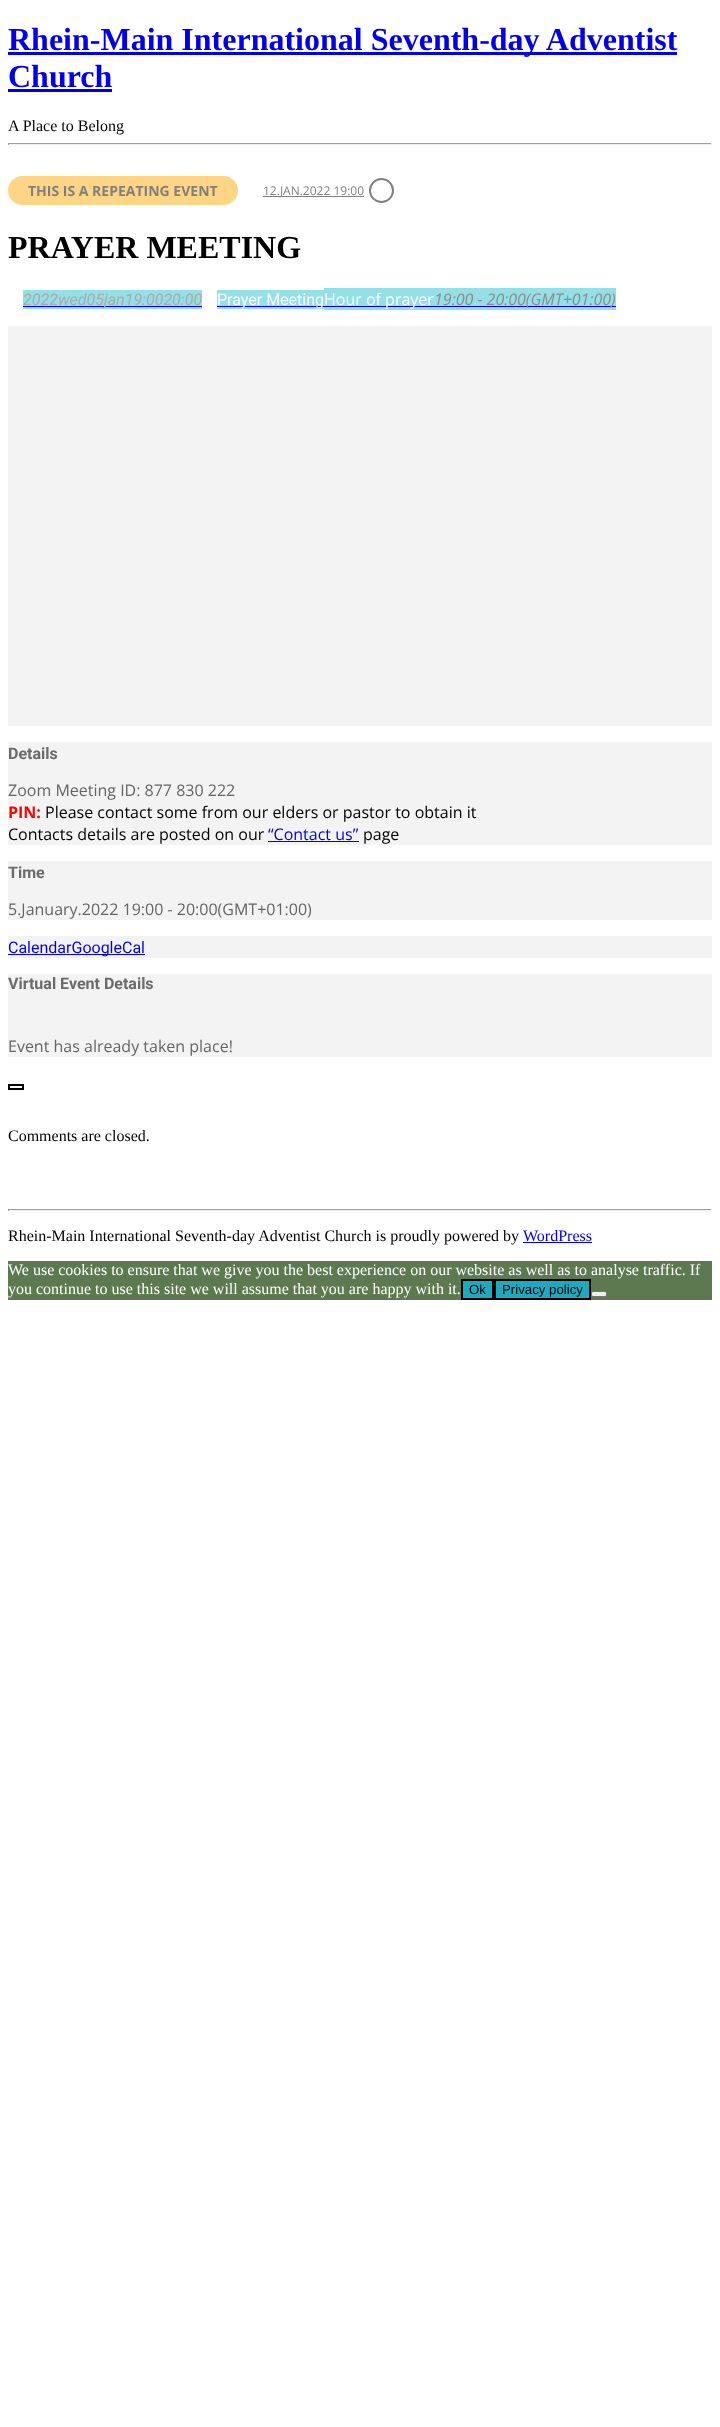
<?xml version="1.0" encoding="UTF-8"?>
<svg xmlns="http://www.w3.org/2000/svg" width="720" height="2427">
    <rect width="100%" height="100%" fill="#FFFFFF"/>
    <rect x="8" y="52" width="669" height="3" fill="#0000EE"/>
    <text font-family="Liberation Serif" font-size="32" font-weight="700" fill="#0000EE">
        <tspan x="8" y="50">Rhein-Main International Seventh-day Adventist</tspan>
        <tspan x="8" y="87">Church</tspan>
    </text>
    <rect x="8" y="89" width="104" height="3" fill="#0000EE"/>
    <text x="8" y="131" font-family="Liberation Serif" font-size="16" fill="#000000">A Place to Belong</text>
    <rect x="8" y="143" width="704" height="1" fill="#9F9F9F"/>
    <rect x="711" y="143" width="1" height="2" fill="#EEEEEE"/>
    <rect x="8" y="144" width="704" height="1" fill="#EEEEEE"/>
    <rect x="8" y="143" width="1" height="2" fill="#9F9F9F"/>
    <rect x="8" y="176" width="230" height="29" rx="14.5" fill="#FED584"/>
    <text x="28" y="196" font-family="Open Sans" font-size="14" font-weight="700" fill="#808080">THIS IS A REPEATING EVENT</text>
    <rect x="263" y="196" width="101" height="1" fill="#808080"/>
    <text x="263" y="195" font-family="Open Sans" font-size="12" fill="#808080">12.JAN.2022 19:00</text>
    <circle cx="381.5" cy="190.5" r="11.5" fill="none" stroke="#808080" stroke-width="2"/>
    <text x="8" y="258" font-family="Liberation Serif" font-size="32" font-weight="700" fill="#000000">PRAYER MEETING</text>
    <rect x="23" y="290" width="179" height="19" fill="#93E0E6"/>
    <rect x="23" y="306" width="179" height="1" fill="#0000EE"/>
    <text x="23" y="305" font-family="Roboto" font-size="16" font-style="italic" fill="#ABABAB">2022wed05jan19:0020:00</text>
    <rect x="217" y="290" width="107" height="19" fill="#93E0E6"/>
    <rect x="324" y="288" width="292" height="22" fill="#93E0E6"/>
    <rect x="217" y="306" width="399" height="1" fill="#0000EE"/>
    <text x="217" y="305" font-family="Roboto" font-size="16" fill="#FFFFFF">Prayer Meeting</text>
    <text x="324" y="305" font-family="Open Sans" font-size="16" fill="#FFFFFF">Hour of prayer</text>
    <text x="434" y="305" font-family="Open Sans" font-size="16" font-style="italic" fill="#8C8C8C">19:00 - 20:00(GMT+01:00)</text>
    <rect x="8" y="326" width="704" height="400" fill="#F3F3F3"/>
    <rect x="8" y="742" width="704" height="103" fill="#F3F3F3"/>
    <text x="8" y="759" font-family="Roboto" font-size="16" font-weight="700" fill="#6B6B6B">Details</text>
    <text x="8" y="796" font-family="Open Sans" font-size="16" fill="#656565">Zoom Meeting ID: 877 830 222</text>
    <text x="8" y="818" font-family="Open Sans" font-size="16" font-weight="700" fill="#FF0000">PIN:</text>
    <text x="45" y="818" font-family="Open Sans" font-size="16" fill="#000000">Please contact some from our elders or pastor to obtain it</text>
    <text x="8" y="840" font-family="Open Sans" font-size="16" fill="#000000">Contacts details are posted on our</text>
    <text x="268" y="840" font-family="Open Sans" font-size="16" fill="#0000EE">“Contact us”</text>
    <text x="363" y="840" font-family="Open Sans" font-size="16" fill="#000000">page</text>
    <rect x="268" y="841" width="91" height="1" fill="#0000EE"/>
    <rect x="8" y="861" width="704" height="59" fill="#F3F3F3"/>
    <text x="8" y="878" font-family="Roboto" font-size="16" font-weight="700" fill="#6B6B6B">Time</text>
    <text x="8" y="915" font-family="Open Sans" font-size="16" fill="#656565">5.January.2022 19:00 - 20:00(GMT+01:00)</text>
    <rect x="8" y="936" width="704" height="22" fill="#F3F3F3"/>
    <rect x="8" y="954" width="137" height="1" fill="#0000EE"/>
    <text x="8" y="953" font-family="Roboto" font-size="16" fill="#0000EE">CalendarGoogleCal</text>
    <rect x="8" y="974" width="704" height="83" fill="#F3F3F3"/>
    <text x="8" y="989" font-family="Roboto" font-size="16" font-weight="700" fill="#6B6B6B">Virtual Event Details</text>
    <text x="8" y="1052" font-family="Open Sans" font-size="16" fill="#656565">Event has already taken place!</text>
    <rect x="9" y="1085" width="14" height="4" fill="#F7F7F7" stroke="#000000" stroke-width="2"/>
    <text x="8" y="1141" font-family="Liberation Serif" font-size="16" fill="#000000">Comments are closed.</text>
    <rect x="8" y="1209" width="704" height="1" fill="#9F9F9F"/>
    <rect x="711" y="1209" width="1" height="2" fill="#EEEEEE"/>
    <rect x="8" y="1210" width="704" height="1" fill="#EEEEEE"/>
    <rect x="8" y="1209" width="1" height="2" fill="#9F9F9F"/>
    <text x="8" y="1241" font-family="Liberation Serif" font-size="16" fill="#000000">Rhein-Main International Seventh-day Adventist Church is proudly powered by</text>
    <text x="523" y="1241" font-family="Liberation Serif" font-size="16" fill="#0000EE">WordPress</text>
    <rect x="523" y="1242" width="69" height="1" fill="#0000EE"/>
    <rect x="8" y="1261" width="704" height="39" fill="#5C7950"/>
    <text font-family="Liberation Serif" font-size="16" fill="#FFFFFF">
        <tspan x="8" y="1275">We use cookies to ensure that we give you the best experience on our website as well as to analyse traffic. If</tspan>
        <tspan x="8" y="1294">you continue to use this site we will assume that you are happy with it.</tspan>
    </text>
    <rect x="462" y="1280" width="31" height="19" fill="#1EA9BF" stroke="#000000" stroke-width="2"/>
    <text x="469" y="1294" font-family="Liberation Sans" font-size="13.25" fill="#000000">Ok</text>
    <rect x="495" y="1280" width="95" height="19" fill="#1EA9BF" stroke="#000000" stroke-width="2"/>
    <text x="502" y="1294" font-family="Liberation Sans" font-size="13.25" fill="#000000">Privacy policy</text>
    <rect x="591.5" y="1291.5" width="15" height="5" rx="1.5" fill="#EFEFEF" stroke="#767676"/>
</svg>
